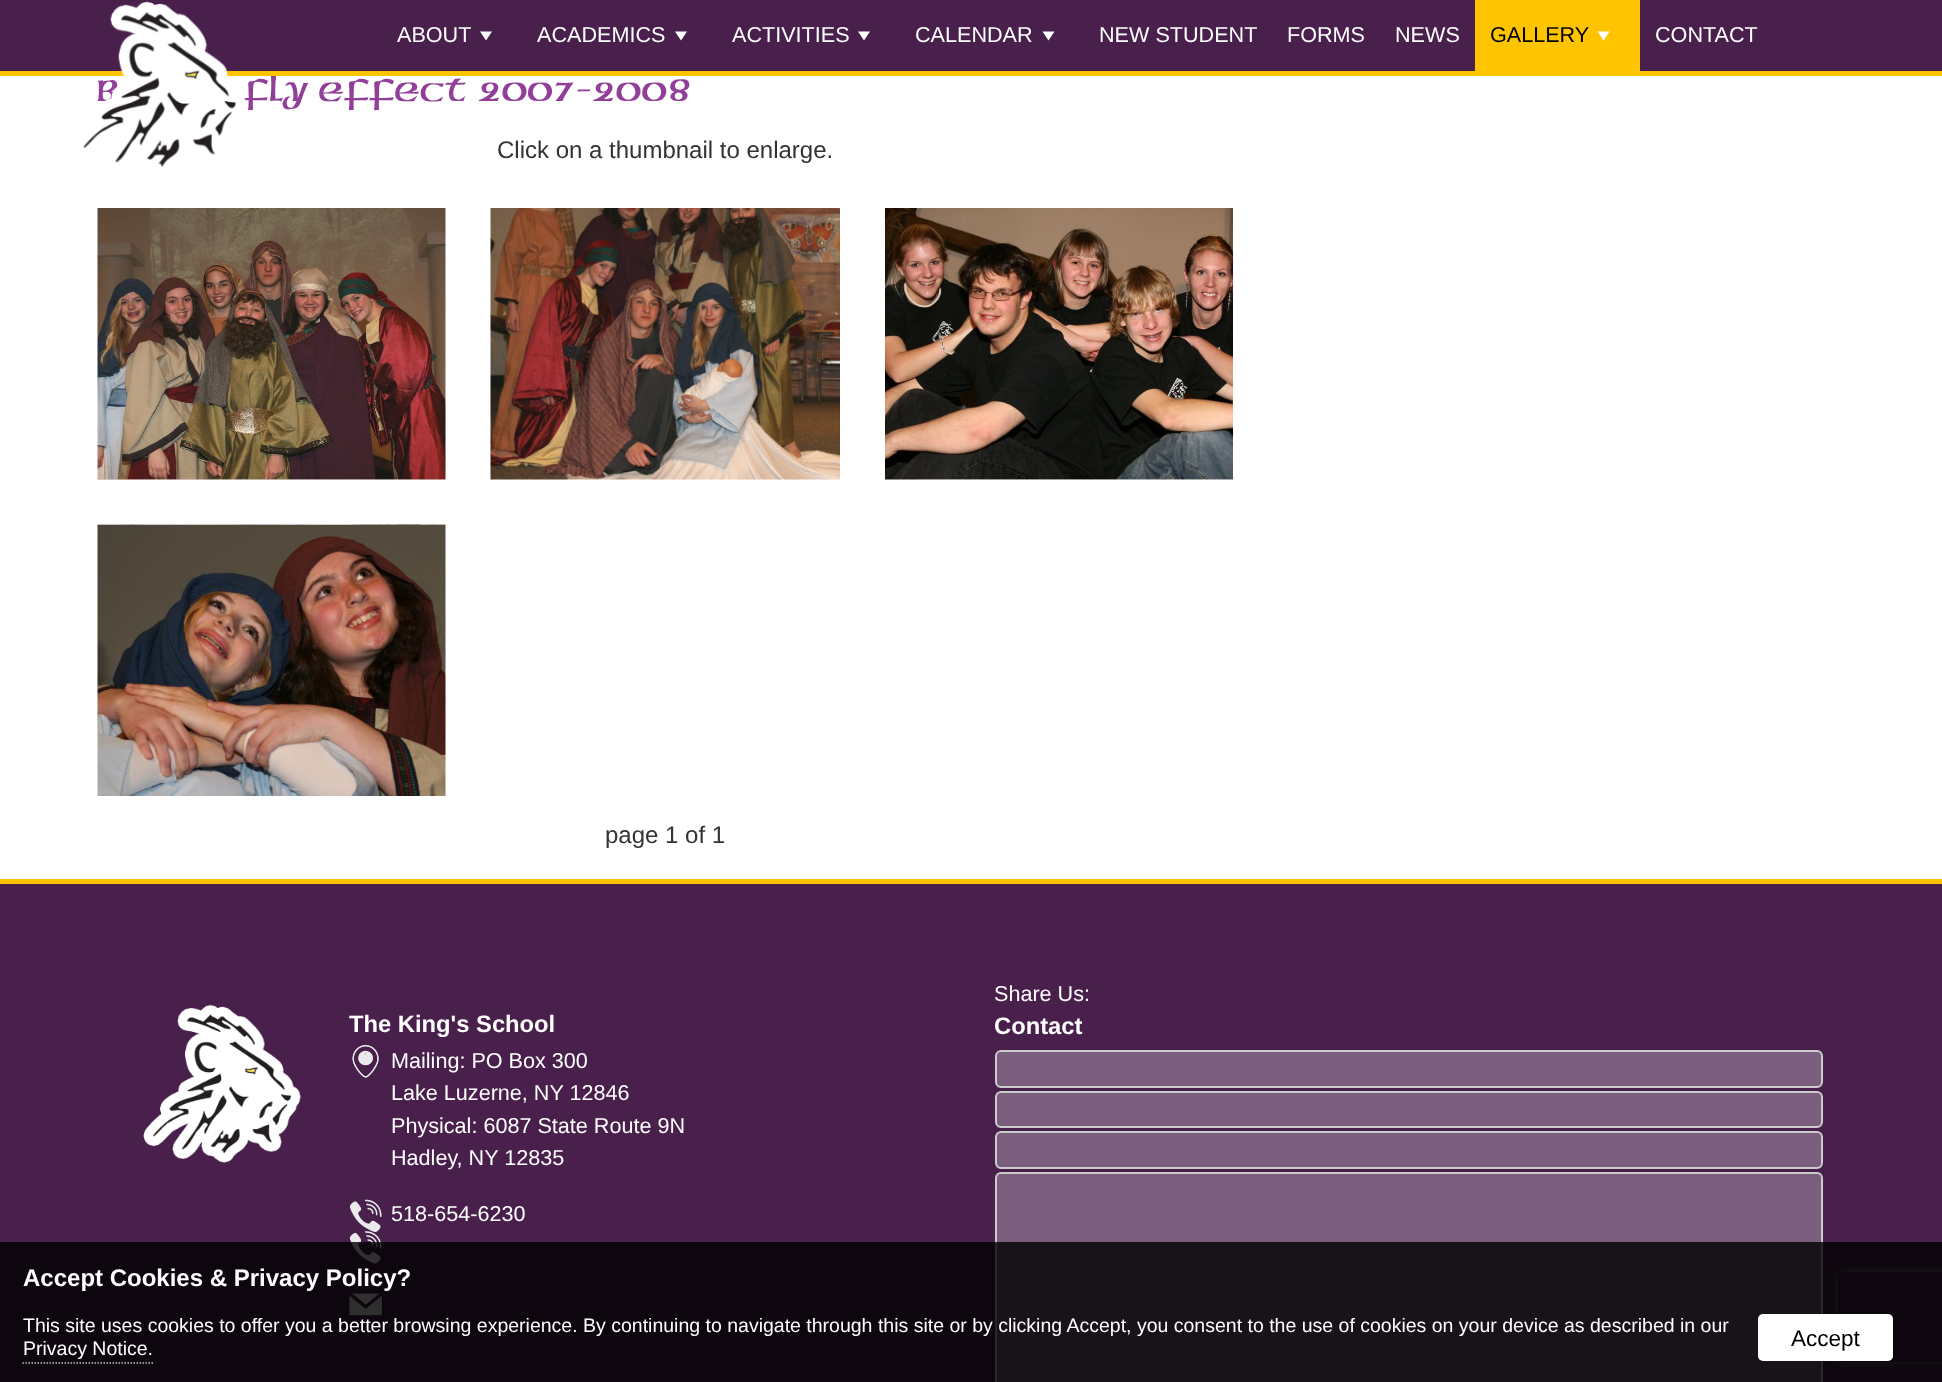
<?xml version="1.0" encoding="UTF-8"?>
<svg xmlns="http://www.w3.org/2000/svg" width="1942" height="1382">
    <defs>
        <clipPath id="clip1"><path d="M 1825 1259 H 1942 V 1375 H 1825 Z M 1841 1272 H 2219 C 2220.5 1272 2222 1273.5 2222 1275 V 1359 C 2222 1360.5 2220.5 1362 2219 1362 H 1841 C 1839.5 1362 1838 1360.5 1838 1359 V 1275 C 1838 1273.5 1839.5 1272 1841 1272 Z" clip-rule="evenodd"/></clipPath>
        <filter id="blur1" x="-50%" y="-200%" width="200%" height="500%"><feGaussianBlur stdDeviation="4"/></filter>
    </defs>
    <rect width="100%" height="100%" fill="#49204C"/>
    <rect x="0" y="76" width="1942" height="803" fill="#FFFFFF"/>
    <text x="243" y="101" font-family="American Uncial" font-size="38.4" fill="#913F98">fly Effect 2007-2008</text>
    <rect x="0" y="71" width="1942" height="5" fill="#FFC400"/>
    <text x="97" y="101" font-family="American Uncial" font-size="38.4" fill="#913F98">B</text>
    <image x="83" y="1" width="163" height="166" href="img_01.png"/>
    <text x="397" y="42" font-family="Liberation Sans" font-size="21.6" fill="#FFFFFF">ABOUT</text>
    <path d="M 480 31.5 H 492 L 486 40.5 Z" fill="#FFFFFF"/>
    <text x="537" y="42" font-family="Liberation Sans" font-size="21.6" fill="#FFFFFF">ACADEMICS</text>
    <path d="M 675 31.5 H 687 L 681 40.5 Z" fill="#FFFFFF"/>
    <text x="732" y="42" font-family="Liberation Sans" font-size="21.6" fill="#FFFFFF">ACTIVITIES</text>
    <path d="M 858 31.5 H 870 L 864 40.5 Z" fill="#FFFFFF"/>
    <text x="915" y="42" font-family="Liberation Sans" font-size="21.6" fill="#FFFFFF">CALENDAR</text>
    <path d="M 1042.5 31.5 H 1054.5 L 1048.5 40.5 Z" fill="#FFFFFF"/>
    <text x="1099" y="42" font-family="Liberation Sans" font-size="21.6" fill="#FFFFFF">NEW STUDENT</text>
    <text x="1287" y="42" font-family="Liberation Sans" font-size="21.6" fill="#FFFFFF">FORMS</text>
    <text x="1395" y="42" font-family="Liberation Sans" font-size="21.6" fill="#FFFFFF">NEWS</text>
    <rect x="1475" y="0" width="165" height="71" fill="#FFC400"/>
    <text x="1490" y="42" font-family="Liberation Sans" font-size="21.6" fill="#000000">GALLERY</text>
    <path d="M 1597.5 31.5 H 1609.5 L 1603.5 40.5 Z" fill="#FFFFFF"/>
    <text x="1655" y="42" font-family="Liberation Sans" font-size="21.6" fill="#FFFFFF">CONTACT</text>
    <text x="497" y="158" font-family="Liberation Sans" font-size="24" fill="#333333">Click on a thumbnail to enlarge.</text>
    <image x="97" y="208" width="349" height="272" href="img_02.png"/>
    <image x="490" y="208" width="350" height="272" href="img_03.png"/>
    <image x="885" y="208" width="348" height="272" href="img_04.png"/>
    <image x="97" y="524" width="349" height="272" href="img_05.png"/>
    <text x="605" y="843" font-family="Liberation Sans" font-size="24" fill="#333333">page 1 of 1</text>
    <rect x="0" y="879" width="1942" height="5" fill="#FFC400"/>
    <image x="143" y="1004" width="158" height="159" href="img_06.png"/>
    <text x="349" y="1032" font-family="Liberation Sans" font-size="23.75" font-weight="700" fill="#FFFFFF">The King's School</text>
    <image x="352" y="1045" width="27" height="33" href="img_07.png"/>
    <image x="352" y="1045" width="27" height="33" href="img_08.png"/>
    <text font-family="Liberation Sans" font-size="21.6" fill="#FFFFFF">
        <tspan x="391" y="1068">Mailing: PO Box 300</tspan>
        <tspan x="391" y="1100">Lake Luzerne, NY 12846</tspan>
        <tspan x="391" y="1133">Physical: 6087 State Route 9N</tspan>
        <tspan x="391" y="1165">Hadley, NY 12835</tspan>
    </text>
    <image x="349" y="1199" width="33" height="34" href="img_09.png"/>
    <text x="391" y="1221" font-family="Liberation Sans" font-size="21.6" fill="#FFFFFF">518-654-6230</text>
    <image x="349" y="1231" width="33" height="33" href="img_10.png"/>
    <image x="349" y="1293" width="33" height="23" href="img_11.png"/>
    <text x="994" y="1001" font-family="Liberation Sans" font-size="21.6" fill="#FFFFFF">Share Us:</text>
    <text x="994" y="1034" font-family="Liberation Sans" font-size="23.75" font-weight="700" fill="#FFFFFF">Contact</text>
    <rect x="996" y="1051" width="826" height="36" rx="5" fill="#7B5E7D" stroke="#CCCCCC" stroke-width="2"/>
    <rect x="996" y="1092" width="826" height="35" rx="5" fill="#7B5E7D" stroke="#CCCCCC" stroke-width="2"/>
    <rect x="996" y="1132" width="826" height="36" rx="5" fill="#7B5E7D" stroke="#CCCCCC" stroke-width="2"/>
    <rect x="996" y="1173" width="826" height="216" rx="5" fill="#7B5E7D" stroke="#CCCCCC" stroke-width="2"/>
    <g clip-path="url(#clip1)">
        <rect x="1838" y="1272" width="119" height="90" rx="3" fill="#808080" filter="url(#blur1)"/>
    </g>
    <rect x="0" y="1242" width="1942" height="140" fill="#000000" fill-opacity="0.8"/>
    <text x="23" y="1286" font-family="Liberation Sans" font-size="24" font-weight="700" fill="#FFFFFF">Accept Cookies &amp; Privacy Policy?</text>
    <text font-family="Liberation Sans" font-size="19.5" fill="#FFFFFF">
        <tspan x="23" y="1332">This site uses cookies to offer you a better browsing experience. By continuing to navigate through this site or by clicking Accept, you consent to the use of cookies on your device as described in our</tspan>
        <tspan x="23" y="1355">Privacy Notice.</tspan>
    </text>
    <path d="M 22.5 1363 H 153" fill="none" stroke="#C3C1C3" stroke-width="1.5" stroke-dasharray="1.5 1.5"/>
    <rect x="1758" y="1314" width="135" height="47" rx="5" fill="#FFFFFF"/>
    <text x="1791" y="1346" font-family="Liberation Sans" font-size="22.5" fill="#000000">Accept</text>
</svg>
